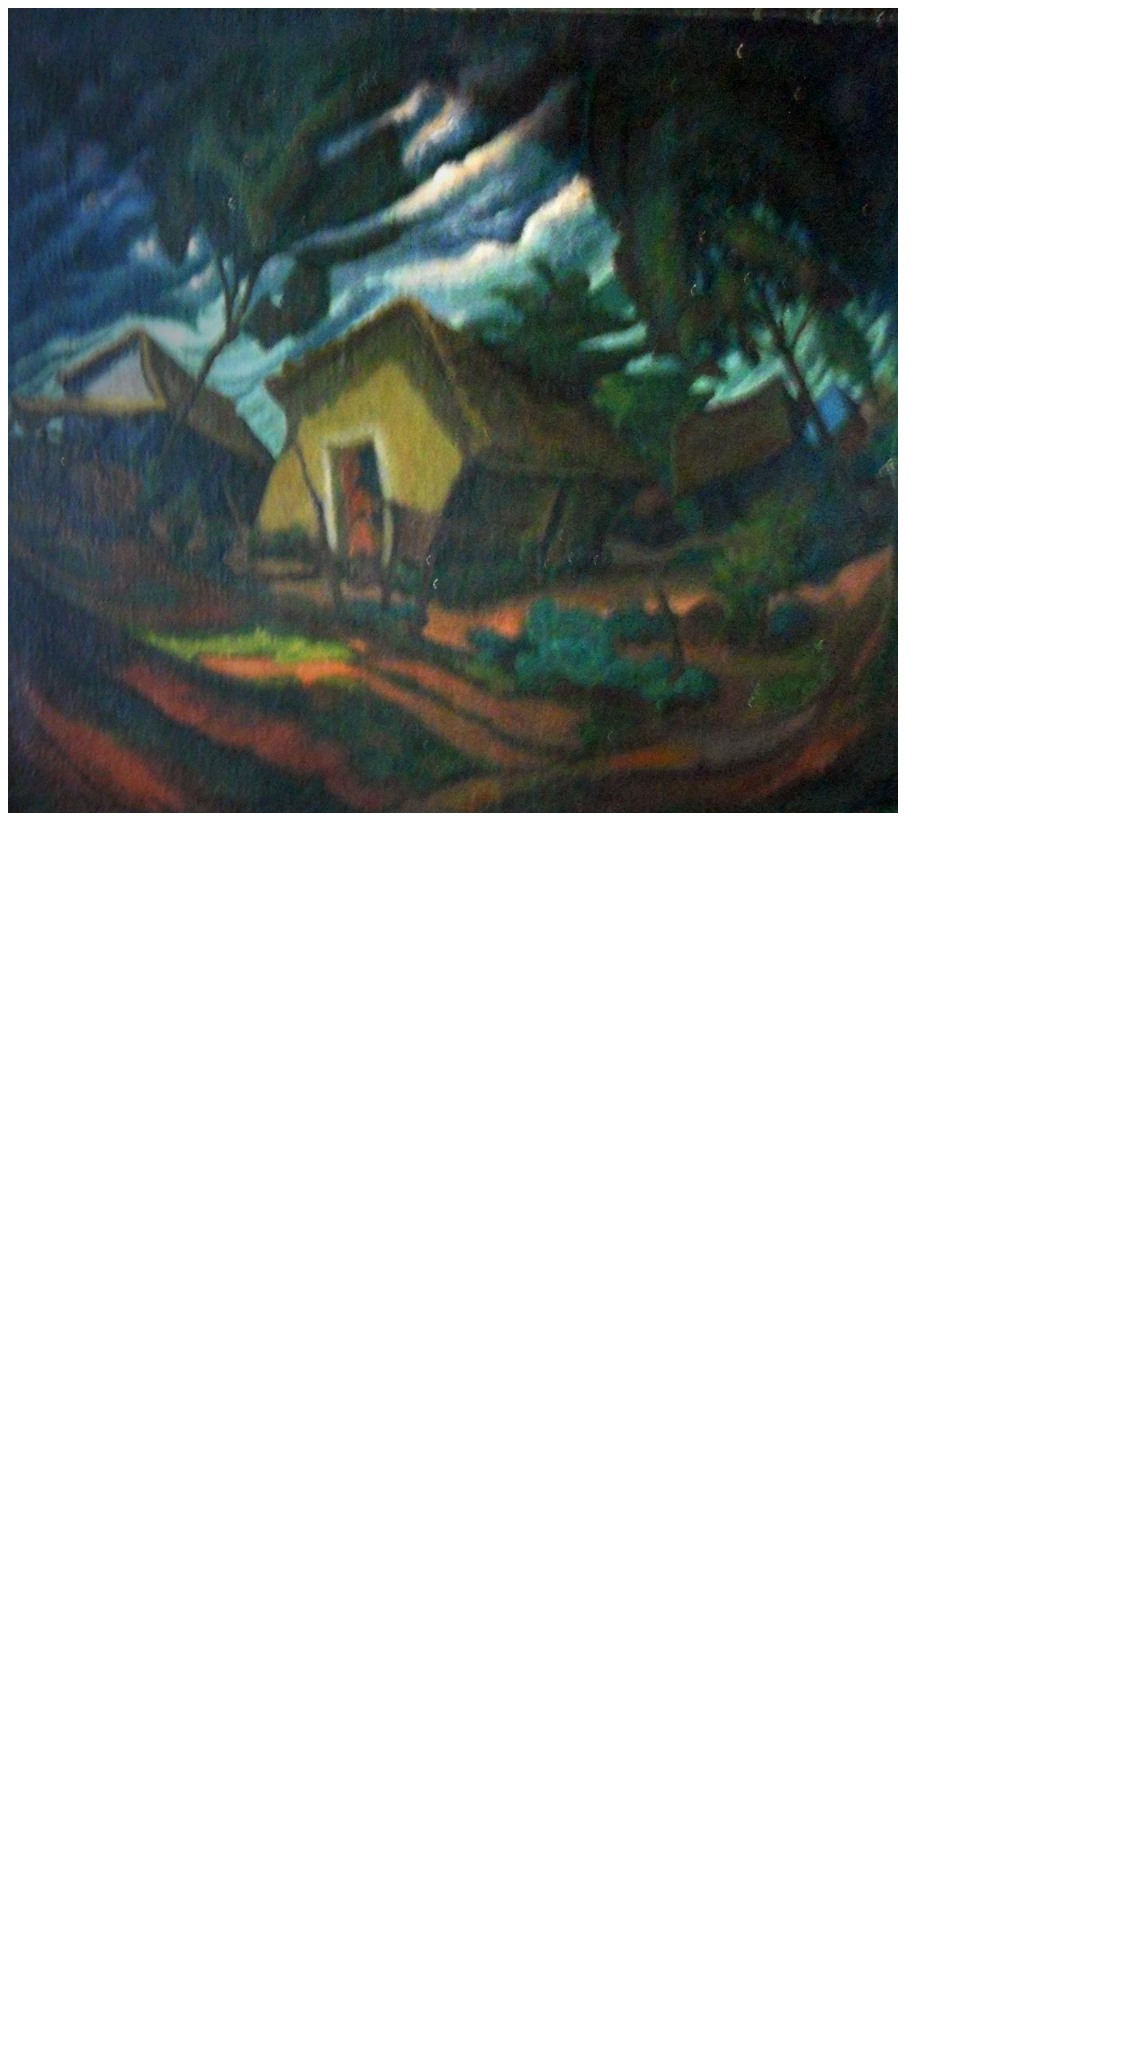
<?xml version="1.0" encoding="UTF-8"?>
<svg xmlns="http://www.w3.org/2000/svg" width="1124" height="2070">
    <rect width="100%" height="100%" fill="#FFFFFF"/>
    <image x="8" y="8" width="890" height="805" href="img_01.png"/>
</svg>
